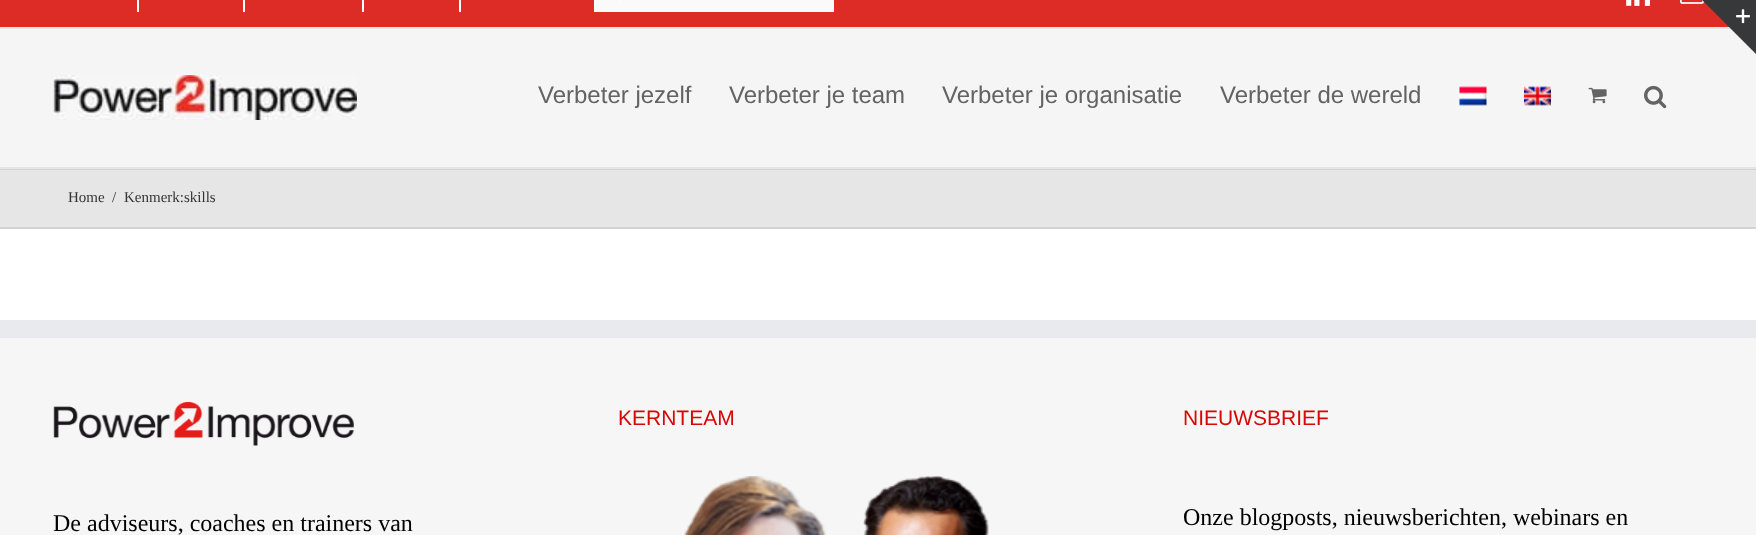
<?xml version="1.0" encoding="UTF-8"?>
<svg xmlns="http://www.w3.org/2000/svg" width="1756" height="535">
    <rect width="100%" height="100%" fill="#FFFFFF"/>
    <rect x="0" y="0" width="1729" height="27" fill="#DD2C25"/>
    <rect x="0" y="27" width="1731" height="2" fill="#E5E5E5"/>
    <image x="1680" y="0" width="24" height="4" href="img_04.png"/>
    <rect x="0" y="29" width="1756" height="138" fill="#F5F5F5"/>
    <path d="M 1702 0 H 1756 V 54 Z" fill="#363839"/>
    <image x="1736" y="9" width="14" height="15" href="img_01.png"/>
    <rect x="137" y="0" width="2" height="12" fill="#FFFFFF"/>
    <rect x="243" y="0" width="2" height="12" fill="#FFFFFF"/>
    <rect x="362" y="0" width="2" height="12" fill="#FFFFFF"/>
    <rect x="459" y="0" width="2" height="12" fill="#FFFFFF"/>
    <rect x="594" y="0" width="2" height="12" fill="#FFFFFF"/>
    <rect x="596" y="0" width="238" height="12" fill="#FAFAFA"/>
    <image x="619" y="0" width="11" height="1" href="img_02.png"/>
    <image x="1626" y="0" width="24" height="6" href="img_03.png"/>
    <rect x="0" y="167" width="1756" height="2" fill="#E5E5E5"/>
    <image x="53" y="75" width="304" height="45" href="img_05.png"/>
    <text x="538" y="103" font-family="Liberation Sans" font-size="24" fill="#636363">Verbeter jezelf</text>
    <text x="729" y="103" font-family="Liberation Sans" font-size="24" fill="#636363">Verbeter je team</text>
    <text x="942" y="103" font-family="Liberation Sans" font-size="24" fill="#636363">Verbeter je organisatie</text>
    <text x="1220" y="103" font-family="Liberation Sans" font-size="24" fill="#636363">Verbeter de wereld</text>
    <image x="1459" y="86" width="28" height="20" href="img_06.png"/>
    <image x="1524" y="86" width="27" height="20" href="img_07.png"/>
    <image x="1588" y="87" width="19" height="17" href="img_08.png"/>
    <image x="1644" y="85" width="23" height="24" href="img_09.png"/>
    <rect x="0" y="170" width="1756" height="57" fill="#E6E6E6"/>
    <rect x="0" y="169" width="1756" height="1" fill="#D2D3D4"/>
    <rect x="0" y="227" width="1756" height="2" fill="#D2D3D4"/>
    <text x="68" y="202" font-family="Liberation Serif" font-size="15" fill="#333333">Home</text>
    <text x="112" y="202" font-family="Liberation Serif" font-size="15" fill="#333333">/</text>
    <text x="124" y="202" font-family="Liberation Serif" font-size="15" fill="#333333">Kenmerk:skills</text>
    <rect x="0" y="338" width="1756" height="197" fill="#F6F6F6"/>
    <rect x="0" y="320" width="1756" height="18" fill="#E9EAEE"/>
    <image x="53" y="402" width="301" height="44" href="img_10.png"/>
    <text x="53" y="531" font-family="Liberation Serif" font-size="24" fill="#000000">De adviseurs, coaches en trainers van</text>
    <text x="618" y="425" font-family="Liberation Sans" font-size="21" fill="#D60707">KERNTEAM</text>
    <image x="684" y="476" width="305" height="59" href="img_11.png"/>
    <text x="1183" y="425" font-family="Liberation Sans" font-size="21" fill="#D60707">NIEUWSBRIEF</text>
    <text x="1183" y="525" font-family="Liberation Serif" font-size="24" fill="#000000">Onze blogposts, nieuwsberichten, webinars en</text>
</svg>
